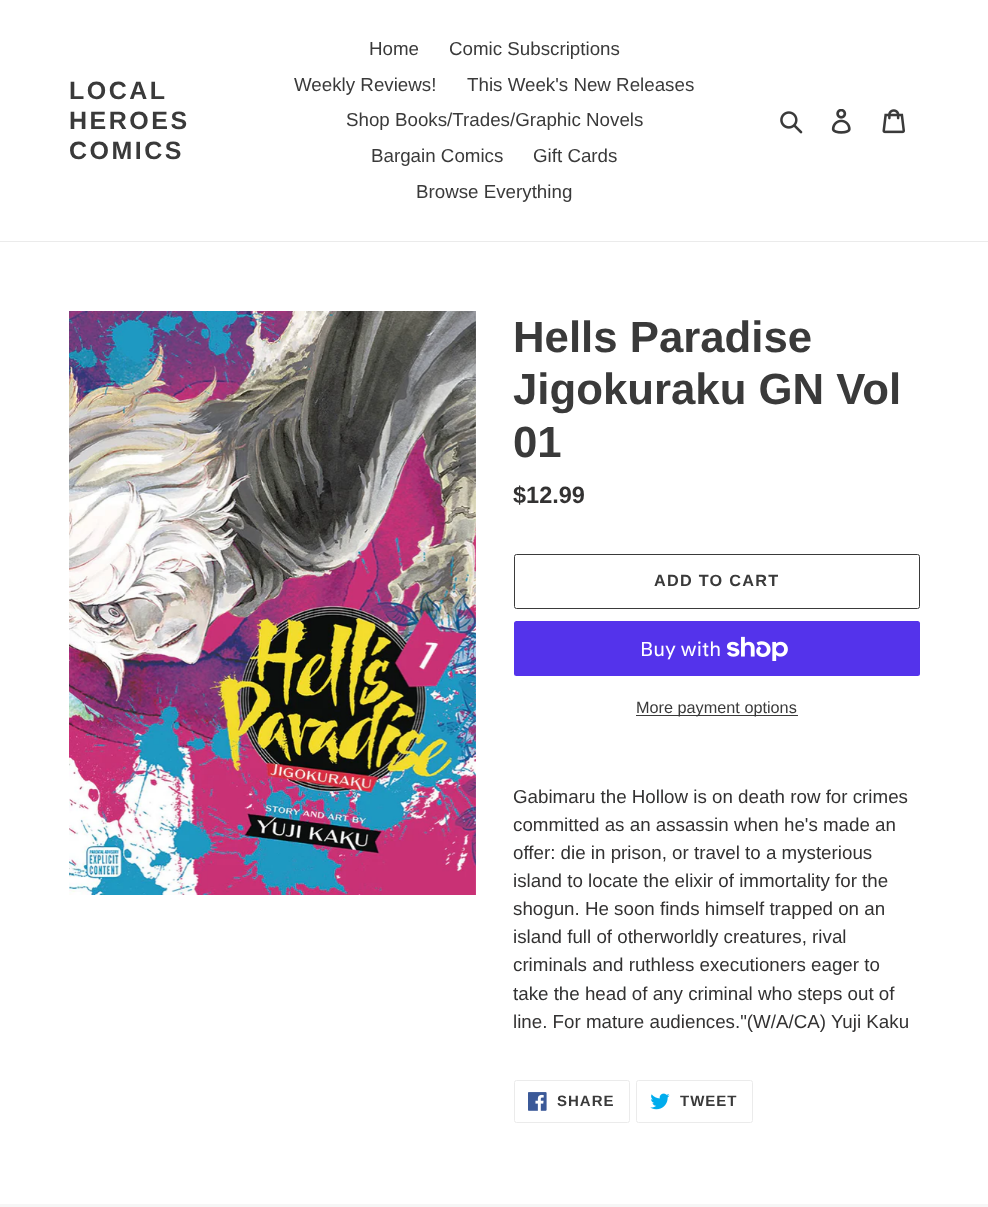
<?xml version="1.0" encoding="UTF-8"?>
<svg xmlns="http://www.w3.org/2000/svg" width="988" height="1207">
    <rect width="100%" height="100%" fill="#FFFFFF"/>
    <rect x="0" y="241" width="988" height="1" fill="#EBEBEB"/>
    <text font-family="Liberation Sans" font-size="25" font-weight="700" letter-spacing="2.5" fill="#3A3A3A">
        <tspan x="69" y="99">LOCAL</tspan>
        <tspan x="69" y="129">HEROES</tspan>
        <tspan x="69" y="159">COMICS</tspan>
    </text>
    <text x="369" y="55" font-family="Liberation Sans" font-size="18.75" fill="#3A3A3A">Home</text>
    <text x="449" y="55" font-family="Liberation Sans" font-size="18.75" fill="#3A3A3A">Comic Subscriptions</text>
    <text x="294" y="91" font-family="Liberation Sans" font-size="18.75" fill="#3A3A3A">Weekly Reviews!</text>
    <text x="467" y="91" font-family="Liberation Sans" font-size="18.75" fill="#3A3A3A">This Week's New Releases</text>
    <text x="346" y="126" font-family="Liberation Sans" font-size="18.75" fill="#3A3A3A">Shop Books/Trades/Graphic Novels</text>
    <text x="371" y="162" font-family="Liberation Sans" font-size="18.75" fill="#3A3A3A">Bargain Comics</text>
    <text x="533" y="162" font-family="Liberation Sans" font-size="18.75" fill="#3A3A3A">Gift Cards</text>
    <text x="416" y="198" font-family="Liberation Sans" font-size="18.75" fill="#3A3A3A">Browse Everything</text>
    <image x="780" y="111" width="23" height="23" href="img_01.png"/>
    <image x="831" y="109" width="20" height="25" href="img_02.png"/>
    <image x="882" y="109" width="23" height="25" href="img_03.png"/>
    <image x="69" y="311" width="407" height="584" href="img_04.png"/>
    <text font-family="Liberation Sans" font-size="43.75" font-weight="700" fill="#3A3A3A">
        <tspan x="513" y="352">Hells Paradise</tspan>
        <tspan x="513" y="404">Jigokuraku GN Vol</tspan>
        <tspan x="513" y="457">01</tspan>
    </text>
    <text x="513" y="503" font-family="Liberation Sans" font-size="23.5" font-weight="700" fill="#333232">$12.99</text>
    <rect x="514.5" y="554.5" width="405" height="54" rx="2" fill="none" stroke="#3A3A3A"/>
    <text x="654" y="586" font-family="Liberation Sans" font-size="16.25" font-weight="700" letter-spacing="1.25" fill="#3A3A3A">ADD TO CART</text>
    <rect x="514" y="621" width="406" height="55" rx="2.5" fill="#5433EB"/>
    <text x="640" y="656" font-family="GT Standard" font-size="20" fill="#FFFFFF">Buy with</text>
    <image x="726" y="636" width="62" height="25" href="img_05.png"/>
    <rect x="636" y="715" width="162" height="1" fill="#3A3A3A"/>
    <text x="636" y="713" font-family="Liberation Sans" font-size="16.25" fill="#3A3A3A">More payment options</text>
    <text font-family="Liberation Sans" font-size="18.75" fill="#333232">
        <tspan x="513" y="803">Gabimaru the Hollow is on death row for crimes</tspan>
        <tspan x="513" y="831">committed as an assassin when he's made an</tspan>
        <tspan x="513" y="859">offer: die in prison, or travel to a mysterious</tspan>
        <tspan x="513" y="887">island to locate the elixir of immortality for the</tspan>
        <tspan x="513" y="915">shogun. He soon finds himself trapped on an</tspan>
        <tspan x="513" y="943">island full of otherworldly creatures, rival</tspan>
        <tspan x="513" y="971">criminals and ruthless executioners eager to</tspan>
        <tspan x="513" y="1000">take the head of any criminal who steps out of</tspan>
        <tspan x="513" y="1028">line. For mature audiences."(W/A/CA) Yuji Kaku</tspan>
    </text>
    <rect x="514.5" y="1080.5" width="115" height="42" rx="2" fill="none" stroke="#EBEBEB"/>
    <image x="528" y="1092" width="19" height="19" href="img_06.png"/>
    <text x="557" y="1106" font-family="Liberation Sans" font-size="15" font-weight="700" letter-spacing="1" fill="#3A3A3A">SHARE</text>
    <rect x="636.5" y="1080.5" width="116" height="42" rx="2" fill="none" stroke="#EBEBEB"/>
    <image x="650" y="1093" width="20" height="17" href="img_07.png"/>
    <text x="680" y="1106" font-family="Liberation Sans" font-size="15" font-weight="700" letter-spacing="1" fill="#3A3A3A">TWEET</text>
    <rect x="0" y="1204" width="988" height="3" fill="#F6F6F6"/>
</svg>
